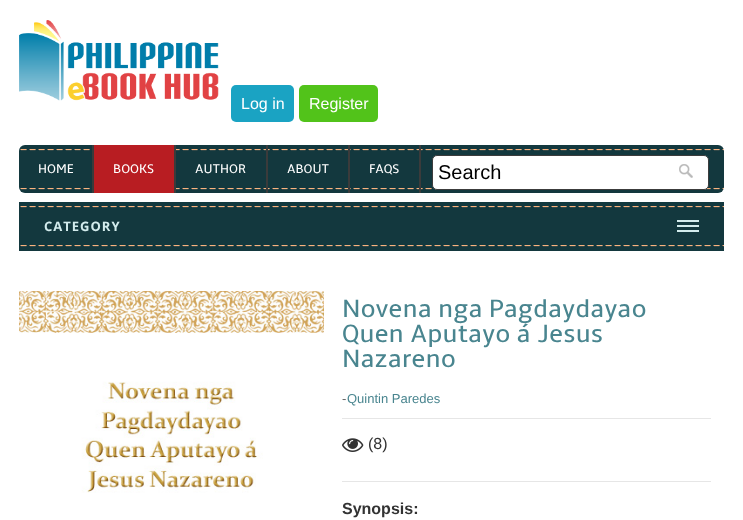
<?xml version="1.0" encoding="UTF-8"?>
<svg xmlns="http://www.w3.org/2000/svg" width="743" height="520">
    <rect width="100%" height="100%" fill="#FFFFFF"/>
    <image x="19" y="20" width="200" height="81" href="img_01.png"/>
    <rect x="231" y="85" width="63" height="37" rx="5" fill="#1AA3C3"/>
    <text x="241" y="109" font-family="Liberation Sans" font-size="16" fill="#FFFFFF">Log in</text>
    <rect x="299" y="85" width="79" height="37" rx="5" fill="#52C31A"/>
    <text x="309" y="109" font-family="Liberation Sans" font-size="16" fill="#FFFFFF">Register</text>
    <image x="19" y="145" width="705" height="48" href="img_02.png"/>
    <rect x="92" y="145" width="2" height="48" fill="#3B3B3B"/>
    <text x="38" y="173" font-family="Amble" font-size="13" fill="#FFFFFF">HOME</text>
    <rect x="94" y="145" width="80" height="48" fill="#B81D22"/>
    <rect x="174" y="145" width="2" height="48" fill="#3B3B3B"/>
    <text x="113" y="173" font-family="Amble" font-size="13" fill="#FFFFFF">BOOKS</text>
    <rect x="266" y="145" width="2" height="48" fill="#3B3B3B"/>
    <text x="195" y="173" font-family="Amble" font-size="13" fill="#FFFFFF">AUTHOR</text>
    <rect x="348" y="145" width="2" height="48" fill="#3B3B3B"/>
    <text x="287" y="173" font-family="Amble" font-size="13" fill="#FFFFFF">ABOUT</text>
    <rect x="419" y="145" width="2" height="48" fill="#3B3B3B"/>
    <text x="369" y="173" font-family="Amble" font-size="13" fill="#FFFFFF">FAQS</text>
    <rect x="432.5" y="155.5" width="276" height="34" rx="4.5" fill="#FFFFFF" stroke="#3C3C3C"/>
    <text x="438" y="179" font-family="Liberation Sans" font-size="20" fill="#000000">Search</text>
    <image x="679" y="164" width="14" height="14" href="img_03.png"/>
    <image x="19" y="202" width="705" height="49" href="img_04.png"/>
    <text x="44" y="231" font-family="Open Sans" font-size="13" font-weight="700" letter-spacing="1" fill="#D3ECED">CATEGORY</text>
    <rect x="677" y="220" width="22" height="2" fill="#D3ECED"/>
    <rect x="677" y="225" width="22" height="2" fill="#D3ECED"/>
    <rect x="677" y="230" width="22" height="2" fill="#D3ECED"/>
    <image x="19" y="291" width="305" height="202" href="img_05.png"/>
    <text font-family="Amble" font-size="26" fill="#49858F">
        <tspan x="342" y="317">Novena nga Pagdaydayao</tspan>
        <tspan x="342" y="342">Quen Aputayo á Jesus</tspan>
        <tspan x="342" y="367">Nazareno</tspan>
    </text>
    <text x="342" y="403" font-family="Liberation Sans" font-size="13" fill="#666666">-</text>
    <text x="347" y="403" font-family="Liberation Sans" font-size="13" fill="#49858F">Quintin Paredes</text>
    <rect x="342" y="418" width="369" height="1" fill="#E6E6E6"/>
    <rect x="342" y="481" width="369" height="1" fill="#E6E6E6"/>
    <image x="342" y="438" width="22" height="14" href="img_06.png"/>
    <text x="368" y="449" font-family="Liberation Sans" font-size="16" fill="#333333">(8)</text>
    <text x="342" y="514" font-family="Liberation Sans" font-size="16" font-weight="700" fill="#333333">Synopsis:</text>
</svg>
